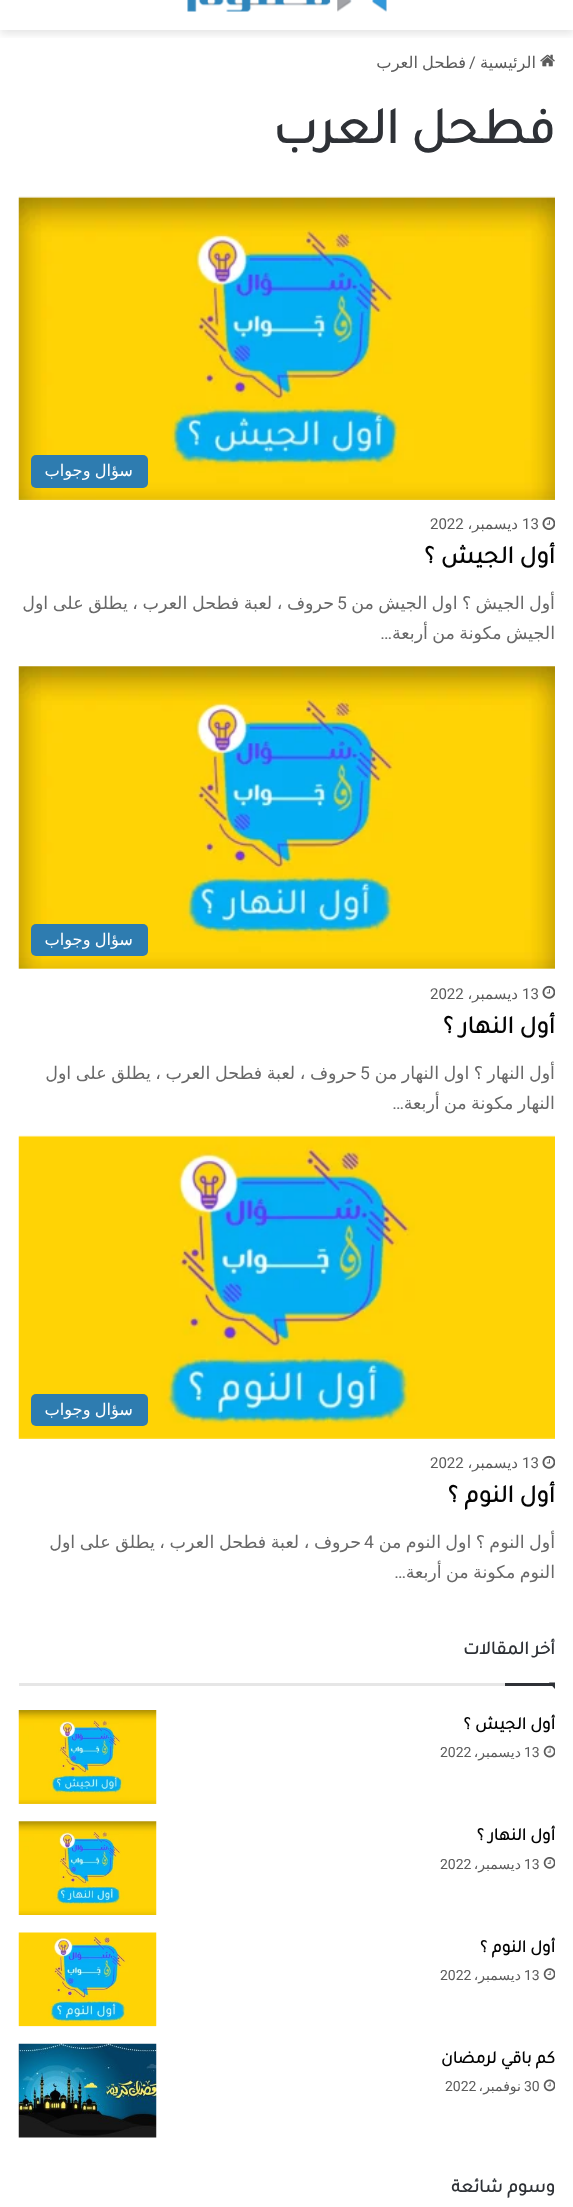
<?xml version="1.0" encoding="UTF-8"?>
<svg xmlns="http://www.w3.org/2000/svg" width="573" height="2207">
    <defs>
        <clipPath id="clip1"><rect x="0" y="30" width="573" height="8"/></clipPath>
        <filter id="blur1" x="-50%" y="-200%" width="200%" height="500%"><feGaussianBlur stdDeviation="4.5"/></filter>
    </defs>
    <rect width="100%" height="100%" fill="#FFFFFF"/>
    <g clip-path="url(#clip1)">
        <rect x="0" y="-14" width="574" height="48" fill="#000000" fill-opacity="0.1" filter="url(#blur1)"/>
    </g>
    <image x="187" y="0" width="200" height="12" href="img_01.png"/>
    <image x="540" y="54" width="15" height="13" href="img_02.png"/>
    <text x="536" y="68" font-family="DejaVu Sans" font-size="16.25" direction="rtl" fill="#5B5B5B">الرئيسية</text>
    <text x="469" y="68" font-family="Roboto" font-size="16.25" fill="#5B5B5B">/</text>
    <text x="466" y="68" word-spacing="-1" font-family="DejaVu Sans" font-size="16.25" direction="rtl" fill="#5B5B5B">فطحل العرب</text>
    <text x="555" y="143" font-family="Tajawal" font-size="51.25" font-weight="700" direction="rtl" fill="#2E3136">فطحل العرب</text>
    <image x="18" y="196" width="537" height="304" href="img_03.png"/>
    <rect x="31" y="455" width="117" height="33" rx="5" fill="#2E7CB0"/>
    <text x="133" y="476" word-spacing="-1" font-family="DejaVu Sans" font-size="16.25" direction="rtl" fill="#FFFFFF">سؤال وجواب</text>
    <image x="542" y="517" width="13" height="13" href="img_04.png"/>
    <text x="522" y="529" font-family="Roboto" font-size="15" fill="#5B5B5B">13</text>
    <text x="518" y="529" font-family="DejaVu Sans" font-size="15" direction="rtl" fill="#5B5B5B">ديسمبر،</text>
    <text x="430" y="529" font-family="Roboto" font-size="15" fill="#5B5B5B">2022</text>
    <text x="555" y="563" font-family="Tajawal" font-size="25" font-weight="700" direction="rtl" fill="#030303">أول الجيش ؟</text>
    <text x="555" y="609" word-spacing="-1.25" font-family="DejaVu Sans" font-size="17.5" direction="rtl" fill="#686868">أول الجيش ؟ اول الجيش من</text>
    <text x="334" y="609" word-spacing="-1" font-family="DejaVu Sans" font-size="17.5" direction="rtl" fill="#686868">حروف ، لعبة فطحل العرب ، يطلق على اول</text>
    <text x="337" y="609" font-family="Roboto" font-size="17.5" fill="#686868">5</text>
    <text x="555" y="639" word-spacing="-1.25" font-family="DejaVu Sans" font-size="17.5" direction="rtl" fill="#686868">الجيش مكونة من أربعة</text>
    <text x="392" y="639" font-family="Roboto" font-size="17.5" direction="rtl" fill="#686868">…</text>
    <image x="18" y="666" width="537" height="303" href="img_05.png"/>
    <rect x="31" y="924" width="117" height="32" rx="5" fill="#2E7CB0"/>
    <text x="133" y="945" word-spacing="-1" font-family="DejaVu Sans" font-size="16.25" direction="rtl" fill="#FFFFFF">سؤال وجواب</text>
    <image x="542" y="985" width="13" height="14" href="img_06.png"/>
    <text x="522" y="999" font-family="Roboto" font-size="15" fill="#5B5B5B">13</text>
    <text x="518" y="999" font-family="DejaVu Sans" font-size="15" direction="rtl" fill="#5B5B5B">ديسمبر،</text>
    <text x="430" y="999" font-family="Roboto" font-size="15" fill="#5B5B5B">2022</text>
    <text x="555" y="1033" font-family="Tajawal" font-size="25" font-weight="700" direction="rtl" fill="#030303">أول النهار ؟</text>
    <text x="555" y="1079" word-spacing="-1.25" font-family="DejaVu Sans" font-size="17.5" direction="rtl" fill="#686868">أول النهار ؟ اول النهار من</text>
    <text x="357" y="1079" word-spacing="-1" font-family="DejaVu Sans" font-size="17.5" direction="rtl" fill="#686868">حروف ، لعبة فطحل العرب ، يطلق على اول</text>
    <text x="360" y="1079" font-family="Roboto" font-size="17.5" fill="#686868">5</text>
    <text x="555" y="1109" word-spacing="-1.25" font-family="DejaVu Sans" font-size="17.5" direction="rtl" fill="#686868">النهار مكونة من أربعة</text>
    <text x="404" y="1109" font-family="Roboto" font-size="17.5" direction="rtl" fill="#686868">…</text>
    <image x="18" y="1135" width="537" height="304" href="img_07.png"/>
    <rect x="31" y="1394" width="117" height="32" rx="5" fill="#2E7CB0"/>
    <text x="133" y="1415" word-spacing="-1" font-family="DejaVu Sans" font-size="16.25" direction="rtl" fill="#FFFFFF">سؤال وجواب</text>
    <image x="542" y="1455" width="13" height="14" href="img_06.png"/>
    <text x="522" y="1468" font-family="Roboto" font-size="15" fill="#5B5B5B">13</text>
    <text x="518" y="1468" font-family="DejaVu Sans" font-size="15" direction="rtl" fill="#5B5B5B">ديسمبر،</text>
    <text x="430" y="1468" font-family="Roboto" font-size="15" fill="#5B5B5B">2022</text>
    <text x="555" y="1502" font-family="Tajawal" font-size="25" font-weight="700" direction="rtl" fill="#030303">أول النوم ؟</text>
    <text x="555" y="1548" word-spacing="-1.25" font-family="DejaVu Sans" font-size="17.5" direction="rtl" fill="#686868">أول النوم ؟ اول النوم من</text>
    <text x="361" y="1548" word-spacing="-1" font-family="DejaVu Sans" font-size="17.5" direction="rtl" fill="#686868">حروف ، لعبة فطحل العرب ، يطلق على اول</text>
    <text x="364" y="1548" font-family="Roboto" font-size="17.5" fill="#686868">4</text>
    <text x="555" y="1578" word-spacing="-1.25" font-family="DejaVu Sans" font-size="17.5" direction="rtl" fill="#686868">النوم مكونة من أربعة</text>
    <text x="406" y="1578" font-family="Roboto" font-size="17.5" direction="rtl" fill="#686868">…</text>
    <rect x="19" y="1683" width="486" height="3" fill="#E6E6E6"/>
    <text x="555" y="1654" font-family="Tajawal" font-size="18.75" font-weight="700" direction="rtl" fill="#2E3136">أخر المقالات</text>
    <path d="M 549 1682.5 H 555 V 1689 Z" fill="#2E3136"/>
    <rect x="505" y="1683" width="50" height="3" fill="#2E3136"/>
    <text x="555" y="1729" font-family="Tajawal" font-size="17.5" font-weight="700" direction="rtl" fill="#030303">أول الجيش ؟</text>
    <image x="543" y="1745" width="12" height="13" href="img_08.png"/>
    <text x="524" y="1757" font-family="Roboto" font-size="14" fill="#5B5B5B">13</text>
    <text x="521" y="1757" font-family="DejaVu Sans" font-size="14" direction="rtl" fill="#5B5B5B">ديسمبر،</text>
    <text x="440" y="1757" font-family="Roboto" font-size="14" fill="#5B5B5B">2022</text>
    <image x="18" y="1710" width="139" height="94" href="img_09.png"/>
    <text x="555" y="1840" font-family="Tajawal" font-size="17.5" font-weight="700" direction="rtl" fill="#030303">أول النهار ؟</text>
    <image x="543" y="1857" width="12" height="12" href="img_10.png"/>
    <text x="524" y="1869" font-family="Roboto" font-size="14" fill="#5B5B5B">13</text>
    <text x="521" y="1869" font-family="DejaVu Sans" font-size="14" direction="rtl" fill="#5B5B5B">ديسمبر،</text>
    <text x="440" y="1869" font-family="Roboto" font-size="14" fill="#5B5B5B">2022</text>
    <image x="18" y="1821" width="139" height="94" href="img_11.png"/>
    <text x="555" y="1952" font-family="Tajawal" font-size="17.5" font-weight="700" direction="rtl" fill="#030303">أول النوم ؟</text>
    <image x="543" y="1968" width="12" height="12" href="img_12.png"/>
    <text x="524" y="1980" font-family="Roboto" font-size="14" fill="#5B5B5B">13</text>
    <text x="521" y="1980" font-family="DejaVu Sans" font-size="14" direction="rtl" fill="#5B5B5B">ديسمبر،</text>
    <text x="440" y="1980" font-family="Roboto" font-size="14" fill="#5B5B5B">2022</text>
    <image x="18" y="1932" width="139" height="95" href="img_13.png"/>
    <text x="555" y="2063" font-family="Tajawal" font-size="17.5" font-weight="700" direction="rtl" fill="#030303">كم باقي لرمضان</text>
    <image x="543" y="2079" width="12" height="13" href="img_14.png"/>
    <text x="524" y="2091" font-family="Roboto" font-size="14" fill="#5B5B5B">30</text>
    <text x="521" y="2091" font-family="DejaVu Sans" font-size="14" direction="rtl" fill="#5B5B5B">نوفمبر،</text>
    <text x="445" y="2091" font-family="Roboto" font-size="14" fill="#5B5B5B">2022</text>
    <image x="18" y="2043" width="139" height="95" href="img_15.png"/>
    <text x="555" y="2192" font-family="Tajawal" font-size="18.75" font-weight="700" direction="rtl" fill="#2E3136">وسوم شائعة</text>
</svg>
